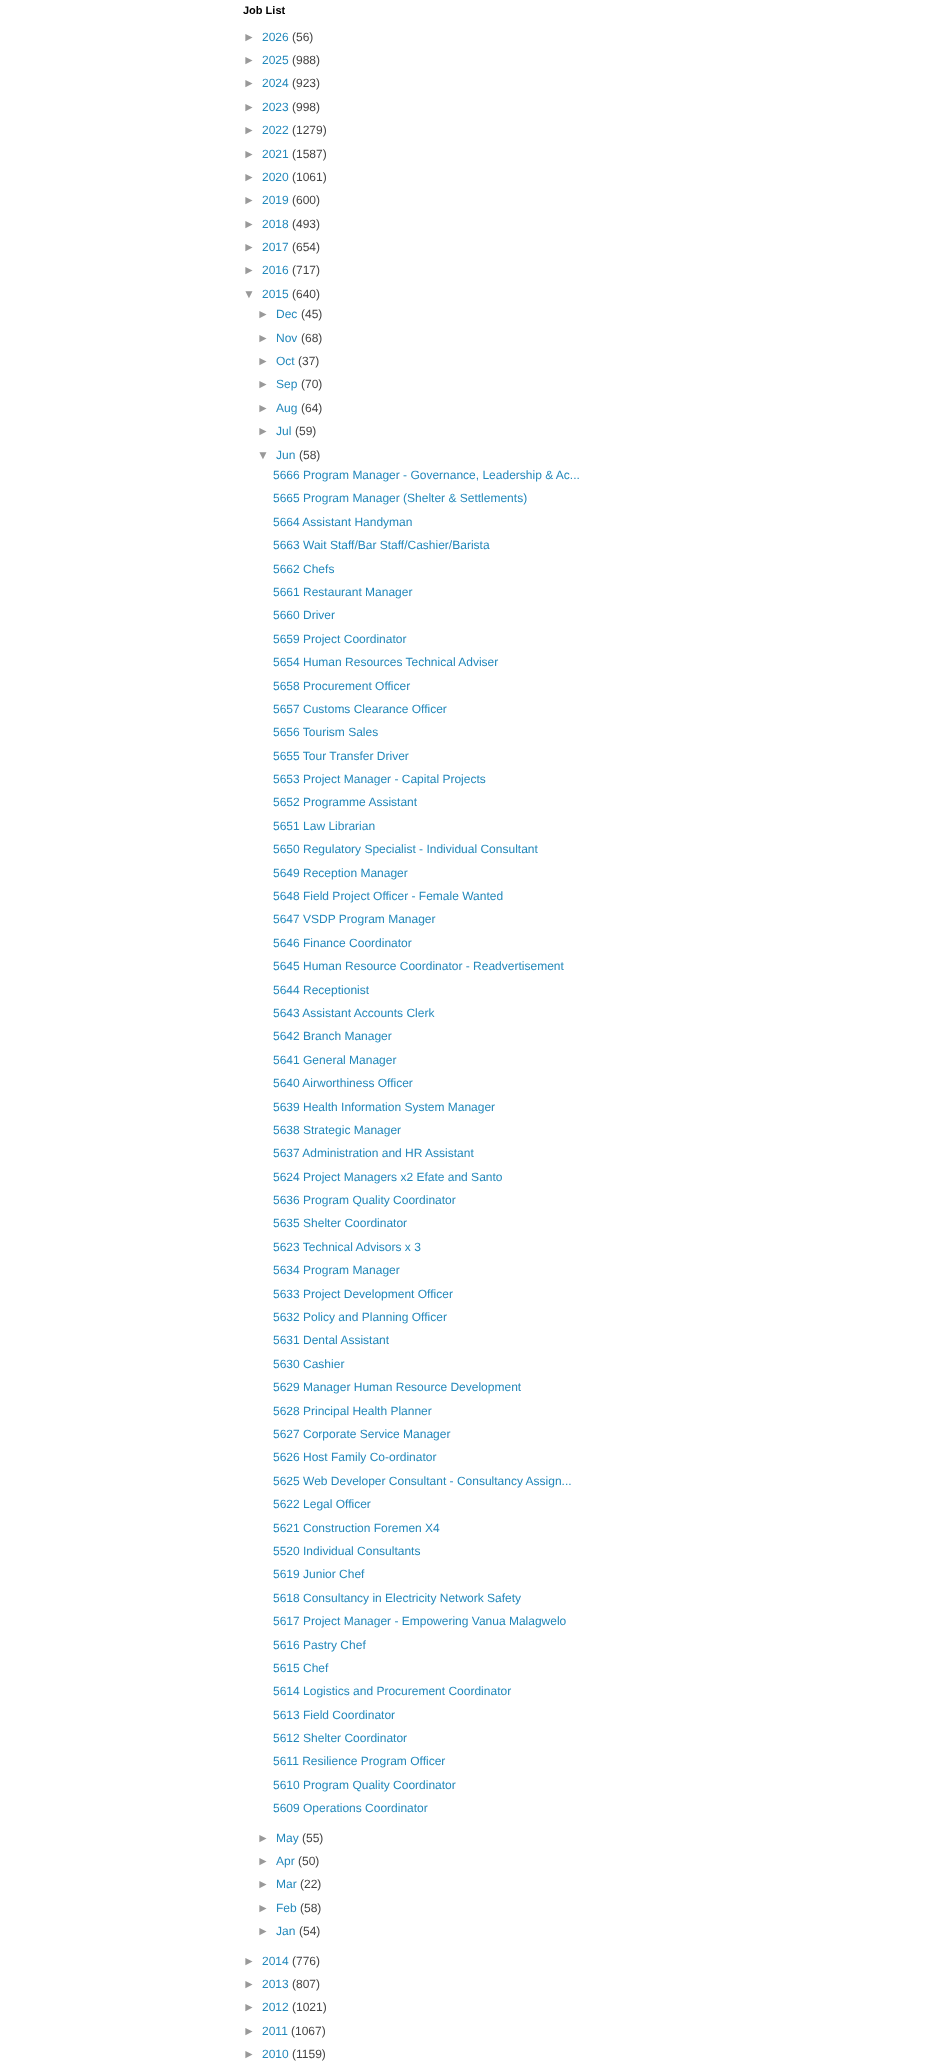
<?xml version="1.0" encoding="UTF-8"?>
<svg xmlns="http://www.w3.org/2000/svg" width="946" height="2067">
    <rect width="100%" height="100%" fill="#FFFFFF"/>
    <text x="243" y="14" font-family="Liberation Sans" font-size="11" font-weight="700" fill="#000000">Job List</text>
    <text x="243" y="41" font-family="Liberation Sans" font-size="12" fill="#999999">►</text>
    <text x="262" y="41" font-family="Liberation Sans" font-size="12" fill="#2288BB">2026</text>
    <text x="292" y="41" font-family="Liberation Sans" font-size="12" fill="#444444">(56)</text>
    <text x="243" y="64" font-family="Liberation Sans" font-size="12" fill="#999999">►</text>
    <text x="262" y="64" font-family="Liberation Sans" font-size="12" fill="#2288BB">2025</text>
    <text x="292" y="64" font-family="Liberation Sans" font-size="12" fill="#444444">(988)</text>
    <text x="243" y="87" font-family="Liberation Sans" font-size="12" fill="#999999">►</text>
    <text x="262" y="87" font-family="Liberation Sans" font-size="12" fill="#2288BB">2024</text>
    <text x="292" y="87" font-family="Liberation Sans" font-size="12" fill="#444444">(923)</text>
    <text x="243" y="111" font-family="Liberation Sans" font-size="12" fill="#999999">►</text>
    <text x="262" y="111" font-family="Liberation Sans" font-size="12" fill="#2288BB">2023</text>
    <text x="292" y="111" font-family="Liberation Sans" font-size="12" fill="#444444">(998)</text>
    <text x="243" y="134" font-family="Liberation Sans" font-size="12" fill="#999999">►</text>
    <text x="262" y="134" font-family="Liberation Sans" font-size="12" fill="#2288BB">2022</text>
    <text x="292" y="134" font-family="Liberation Sans" font-size="12" fill="#444444">(1279)</text>
    <text x="243" y="158" font-family="Liberation Sans" font-size="12" fill="#999999">►</text>
    <text x="262" y="158" font-family="Liberation Sans" font-size="12" fill="#2288BB">2021</text>
    <text x="292" y="158" font-family="Liberation Sans" font-size="12" fill="#444444">(1587)</text>
    <text x="243" y="181" font-family="Liberation Sans" font-size="12" fill="#999999">►</text>
    <text x="262" y="181" font-family="Liberation Sans" font-size="12" fill="#2288BB">2020</text>
    <text x="292" y="181" font-family="Liberation Sans" font-size="12" fill="#444444">(1061)</text>
    <text x="243" y="204" font-family="Liberation Sans" font-size="12" fill="#999999">►</text>
    <text x="262" y="204" font-family="Liberation Sans" font-size="12" fill="#2288BB">2019</text>
    <text x="292" y="204" font-family="Liberation Sans" font-size="12" fill="#444444">(600)</text>
    <text x="243" y="228" font-family="Liberation Sans" font-size="12" fill="#999999">►</text>
    <text x="262" y="228" font-family="Liberation Sans" font-size="12" fill="#2288BB">2018</text>
    <text x="292" y="228" font-family="Liberation Sans" font-size="12" fill="#444444">(493)</text>
    <text x="243" y="251" font-family="Liberation Sans" font-size="12" fill="#999999">►</text>
    <text x="262" y="251" font-family="Liberation Sans" font-size="12" fill="#2288BB">2017</text>
    <text x="292" y="251" font-family="Liberation Sans" font-size="12" fill="#444444">(654)</text>
    <text x="243" y="274" font-family="Liberation Sans" font-size="12" fill="#999999">►</text>
    <text x="262" y="274" font-family="Liberation Sans" font-size="12" fill="#2288BB">2016</text>
    <text x="292" y="274" font-family="Liberation Sans" font-size="12" fill="#444444">(717)</text>
    <text x="243" y="298" font-family="Liberation Sans" font-size="12" fill="#999999">▼</text>
    <text x="262" y="298" font-family="Liberation Sans" font-size="12" fill="#2288BB">2015</text>
    <text x="292" y="298" font-family="Liberation Sans" font-size="12" fill="#444444">(640)</text>
    <text x="257" y="318" font-family="Liberation Sans" font-size="12" fill="#999999">►</text>
    <text x="276" y="318" font-family="Liberation Sans" font-size="12" fill="#2288BB">Dec</text>
    <text x="301" y="318" font-family="Liberation Sans" font-size="12" fill="#444444">(45)</text>
    <text x="257" y="342" font-family="Liberation Sans" font-size="12" fill="#999999">►</text>
    <text x="276" y="342" font-family="Liberation Sans" font-size="12" fill="#2288BB">Nov</text>
    <text x="301" y="342" font-family="Liberation Sans" font-size="12" fill="#444444">(68)</text>
    <text x="257" y="365" font-family="Liberation Sans" font-size="12" fill="#999999">►</text>
    <text x="276" y="365" font-family="Liberation Sans" font-size="12" fill="#2288BB">Oct</text>
    <text x="298" y="365" font-family="Liberation Sans" font-size="12" fill="#444444">(37)</text>
    <text x="257" y="388" font-family="Liberation Sans" font-size="12" fill="#999999">►</text>
    <text x="276" y="388" font-family="Liberation Sans" font-size="12" fill="#2288BB">Sep</text>
    <text x="301" y="388" font-family="Liberation Sans" font-size="12" fill="#444444">(70)</text>
    <text x="257" y="412" font-family="Liberation Sans" font-size="12" fill="#999999">►</text>
    <text x="276" y="412" font-family="Liberation Sans" font-size="12" fill="#2288BB">Aug</text>
    <text x="301" y="412" font-family="Liberation Sans" font-size="12" fill="#444444">(64)</text>
    <text x="257" y="435" font-family="Liberation Sans" font-size="12" fill="#999999">►</text>
    <text x="276" y="435" font-family="Liberation Sans" font-size="12" fill="#2288BB">Jul</text>
    <text x="295" y="435" font-family="Liberation Sans" font-size="12" fill="#444444">(59)</text>
    <text x="257" y="459" font-family="Liberation Sans" font-size="12" fill="#999999">▼</text>
    <text x="276" y="459" font-family="Liberation Sans" font-size="12" fill="#2288BB">Jun</text>
    <text x="299" y="459" font-family="Liberation Sans" font-size="12" fill="#444444">(58)</text>
    <text font-family="Liberation Sans" font-size="12" fill="#2288BB">
        <tspan x="273" y="479">5666 Program Manager - Governance, Leadership &amp; Ac...</tspan>
        <tspan x="273" y="502">5665 Program Manager (Shelter &amp; Settlements)</tspan>
    </text>
    <text font-family="Liberation Sans" font-size="12" fill="#2288BB">
        <tspan x="273" y="526">5664 Assistant Handyman</tspan>
        <tspan x="273" y="549">5663 Wait Staff/Bar Staff/Cashier/Barista</tspan>
    </text>
    <text font-family="Liberation Sans" font-size="12" fill="#2288BB">
        <tspan x="273" y="573">5662 Chefs</tspan>
        <tspan x="273" y="596">5661 Restaurant Manager</tspan>
        <tspan x="273" y="619">5660 Driver</tspan>
    </text>
    <text font-family="Liberation Sans" font-size="12" fill="#2288BB">
        <tspan x="273" y="643">5659 Project Coordinator</tspan>
        <tspan x="273" y="666">5654 Human Resources Technical Adviser</tspan>
    </text>
    <text font-family="Liberation Sans" font-size="12" fill="#2288BB">
        <tspan x="273" y="690">5658 Procurement Officer</tspan>
        <tspan x="273" y="713">5657 Customs Clearance Officer</tspan>
        <tspan x="273" y="736">5656 Tourism Sales</tspan>
    </text>
    <text font-family="Liberation Sans" font-size="12" fill="#2288BB">
        <tspan x="273" y="760">5655 Tour Transfer Driver</tspan>
        <tspan x="273" y="783">5653 Project Manager - Capital Projects</tspan>
        <tspan x="273" y="806">5652 Programme Assistant</tspan>
    </text>
    <text font-family="Liberation Sans" font-size="12" fill="#2288BB">
        <tspan x="273" y="830">5651 Law Librarian</tspan>
        <tspan x="273" y="853">5650 Regulatory Specialist - Individual Consultant</tspan>
    </text>
    <text font-family="Liberation Sans" font-size="12" fill="#2288BB">
        <tspan x="273" y="877">5649 Reception Manager</tspan>
        <tspan x="273" y="900">5648 Field Project Officer - Female Wanted</tspan>
        <tspan x="273" y="923">5647 VSDP Program Manager</tspan>
    </text>
    <text font-family="Liberation Sans" font-size="12" fill="#2288BB">
        <tspan x="273" y="947">5646 Finance Coordinator</tspan>
        <tspan x="273" y="970">5645 Human Resource Coordinator - Readvertisement</tspan>
    </text>
    <text font-family="Liberation Sans" font-size="12" fill="#2288BB">
        <tspan x="273" y="994">5644 Receptionist</tspan>
        <tspan x="273" y="1017">5643 Assistant Accounts Clerk</tspan>
        <tspan x="273" y="1040">5642 Branch Manager</tspan>
    </text>
    <text font-family="Liberation Sans" font-size="12" fill="#2288BB">
        <tspan x="273" y="1064">5641 General Manager</tspan>
        <tspan x="273" y="1087">5640 Airworthiness Officer</tspan>
    </text>
    <text font-family="Liberation Sans" font-size="12" fill="#2288BB">
        <tspan x="273" y="1111">5639 Health Information System Manager</tspan>
        <tspan x="273" y="1134">5638 Strategic Manager</tspan>
        <tspan x="273" y="1157">5637 Administration and HR Assistant</tspan>
    </text>
    <text font-family="Liberation Sans" font-size="12" fill="#2288BB">
        <tspan x="273" y="1181">5624 Project Managers x2 Efate and Santo</tspan>
        <tspan x="273" y="1204">5636 Program Quality Coordinator</tspan>
        <tspan x="273" y="1227">5635 Shelter Coordinator</tspan>
    </text>
    <text font-family="Liberation Sans" font-size="12" fill="#2288BB">
        <tspan x="273" y="1251">5623 Technical Advisors x 3</tspan>
        <tspan x="273" y="1274">5634 Program Manager</tspan>
    </text>
    <text font-family="Liberation Sans" font-size="12" fill="#2288BB">
        <tspan x="273" y="1298">5633 Project Development Officer</tspan>
        <tspan x="273" y="1321">5632 Policy and Planning Officer</tspan>
        <tspan x="273" y="1344">5631 Dental Assistant</tspan>
    </text>
    <text font-family="Liberation Sans" font-size="12" fill="#2288BB">
        <tspan x="273" y="1368">5630 Cashier</tspan>
        <tspan x="273" y="1391">5629 Manager Human Resource Development</tspan>
    </text>
    <text font-family="Liberation Sans" font-size="12" fill="#2288BB">
        <tspan x="273" y="1415">5628 Principal Health Planner</tspan>
        <tspan x="273" y="1438">5627 Corporate Service Manager</tspan>
        <tspan x="273" y="1461">5626 Host Family Co-ordinator</tspan>
    </text>
    <text font-family="Liberation Sans" font-size="12" fill="#2288BB">
        <tspan x="273" y="1485">5625 Web Developer Consultant - Consultancy Assign...</tspan>
        <tspan x="273" y="1508">5622 Legal Officer</tspan>
    </text>
    <text font-family="Liberation Sans" font-size="12" fill="#2288BB">
        <tspan x="273" y="1532">5621 Construction Foremen X4</tspan>
        <tspan x="273" y="1555">5520 Individual Consultants</tspan>
        <tspan x="273" y="1578">5619 Junior Chef</tspan>
    </text>
    <text font-family="Liberation Sans" font-size="12" fill="#2288BB">
        <tspan x="273" y="1602">5618 Consultancy in Electricity Network Safety</tspan>
        <tspan x="273" y="1625">5617 Project Manager - Empowering Vanua Malagwelo</tspan>
    </text>
    <text font-family="Liberation Sans" font-size="12" fill="#2288BB">
        <tspan x="273" y="1649">5616 Pastry Chef</tspan>
        <tspan x="273" y="1672">5615 Chef</tspan>
        <tspan x="273" y="1695">5614 Logistics and Procurement Coordinator</tspan>
    </text>
    <text font-family="Liberation Sans" font-size="12" fill="#2288BB">
        <tspan x="273" y="1719">5613 Field Coordinator</tspan>
        <tspan x="273" y="1742">5612 Shelter Coordinator</tspan>
        <tspan x="273" y="1765">5611 Resilience Program Officer</tspan>
    </text>
    <text font-family="Liberation Sans" font-size="12" fill="#2288BB">
        <tspan x="273" y="1789">5610 Program Quality Coordinator</tspan>
        <tspan x="273" y="1812">5609 Operations Coordinator</tspan>
    </text>
    <text x="257" y="1842" font-family="Liberation Sans" font-size="12" fill="#999999">►</text>
    <text x="276" y="1842" font-family="Liberation Sans" font-size="12" fill="#2288BB">May</text>
    <text x="302" y="1842" font-family="Liberation Sans" font-size="12" fill="#444444">(55)</text>
    <text x="257" y="1865" font-family="Liberation Sans" font-size="12" fill="#999999">►</text>
    <text x="276" y="1865" font-family="Liberation Sans" font-size="12" fill="#2288BB">Apr</text>
    <text x="298" y="1865" font-family="Liberation Sans" font-size="12" fill="#444444">(50)</text>
    <text x="257" y="1888" font-family="Liberation Sans" font-size="12" fill="#999999">►</text>
    <text x="276" y="1888" font-family="Liberation Sans" font-size="12" fill="#2288BB">Mar</text>
    <text x="300" y="1888" font-family="Liberation Sans" font-size="12" fill="#444444">(22)</text>
    <text x="257" y="1912" font-family="Liberation Sans" font-size="12" fill="#999999">►</text>
    <text x="276" y="1912" font-family="Liberation Sans" font-size="12" fill="#2288BB">Feb</text>
    <text x="300" y="1912" font-family="Liberation Sans" font-size="12" fill="#444444">(58)</text>
    <text x="257" y="1935" font-family="Liberation Sans" font-size="12" fill="#999999">►</text>
    <text x="276" y="1935" font-family="Liberation Sans" font-size="12" fill="#2288BB">Jan</text>
    <text x="299" y="1935" font-family="Liberation Sans" font-size="12" fill="#444444">(54)</text>
    <text x="243" y="1965" font-family="Liberation Sans" font-size="12" fill="#999999">►</text>
    <text x="262" y="1965" font-family="Liberation Sans" font-size="12" fill="#2288BB">2014</text>
    <text x="292" y="1965" font-family="Liberation Sans" font-size="12" fill="#444444">(776)</text>
    <text x="243" y="1988" font-family="Liberation Sans" font-size="12" fill="#999999">►</text>
    <text x="262" y="1988" font-family="Liberation Sans" font-size="12" fill="#2288BB">2013</text>
    <text x="292" y="1988" font-family="Liberation Sans" font-size="12" fill="#444444">(807)</text>
    <text x="243" y="2011" font-family="Liberation Sans" font-size="12" fill="#999999">►</text>
    <text x="262" y="2011" font-family="Liberation Sans" font-size="12" fill="#2288BB">2012</text>
    <text x="292" y="2011" font-family="Liberation Sans" font-size="12" fill="#444444">(1021)</text>
    <text x="243" y="2035" font-family="Liberation Sans" font-size="12" fill="#999999">►</text>
    <text x="262" y="2035" font-family="Liberation Sans" font-size="12" fill="#2288BB">2011</text>
    <text x="291" y="2035" font-family="Liberation Sans" font-size="12" fill="#444444">(1067)</text>
    <text x="243" y="2058" font-family="Liberation Sans" font-size="12" fill="#999999">►</text>
    <text x="262" y="2058" font-family="Liberation Sans" font-size="12" fill="#2288BB">2010</text>
    <text x="292" y="2058" font-family="Liberation Sans" font-size="12" fill="#444444">(1159)</text>
</svg>
